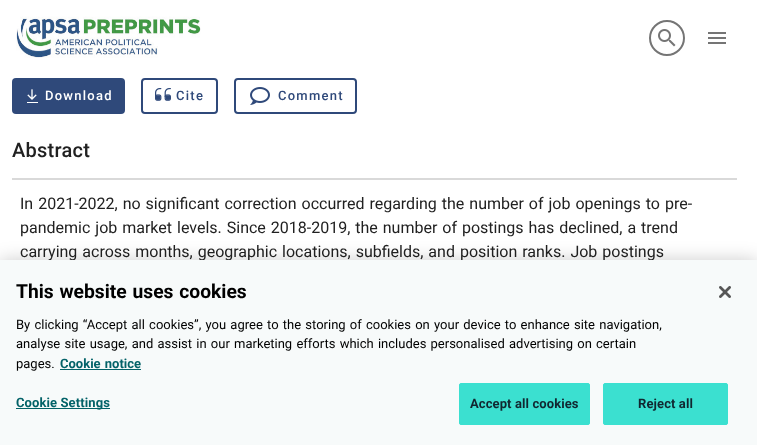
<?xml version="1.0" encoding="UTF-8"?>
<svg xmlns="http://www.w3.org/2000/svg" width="757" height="445">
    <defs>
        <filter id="blur1" x="-50%" y="-200%" width="200%" height="500%"><feGaussianBlur stdDeviation="9"/></filter>
    </defs>
    <rect width="100%" height="100%" fill="#FFFFFF"/>
    <image x="16" y="16" width="185" height="42" href="img_01.png"/>
    <circle cx="667" cy="38" r="17" fill="none" stroke="#757575" stroke-width="2"/>
    <image x="658" y="29" width="18" height="18" href="img_02.png"/>
    <image x="708" y="32" width="18" height="12" href="img_03.png"/>
    <rect x="12" y="78" width="113" height="36" rx="4" fill="#2F497A"/>
    <image x="27" y="89" width="11" height="14" href="img_04.png"/>
    <text x="45" y="100" font-family="Roboto" font-size="13" font-weight="500" letter-spacing="1.25" fill="#FFFFFF">Download</text>
    <rect x="142" y="79" width="75" height="34" rx="3" fill="none" stroke="#2F497A" stroke-width="2"/>
    <rect x="143" y="80" width="73" height="32" rx="4" fill="#FFFFFF"/>
    <image x="155" y="88" width="16" height="13" href="img_05.png"/>
    <text x="176" y="100" font-family="Roboto" font-size="13" font-weight="500" letter-spacing="1.25" fill="#2F497A">Cite</text>
    <rect x="235" y="79" width="121" height="34" rx="3" fill="none" stroke="#2F497A" stroke-width="2"/>
    <rect x="236" y="80" width="119" height="32" rx="4" fill="#FFFFFF"/>
    <image x="250" y="87" width="20" height="18" href="img_06.png"/>
    <text x="278" y="100" font-family="Roboto" font-size="13" font-weight="500" letter-spacing="1.25" fill="#2F497A">Comment</text>
    <rect x="12" y="178" width="725" height="2" fill="#D9D9D9"/>
    <text x="12" y="157" font-family="Roboto" font-size="20" font-weight="500" letter-spacing="0.25" fill="#212121">Abstract</text>
    <text font-family="Roboto" font-size="16" fill="#212121">
        <tspan x="20" y="209" word-spacing="1">In 2021-2022, no significant correction occurred regarding the number of job openings to pre-</tspan>
        <tspan x="20" y="233" word-spacing="1">pandemic job market levels. Since 2018-2019, the number of postings has declined, a trend</tspan>
        <tspan x="20" y="257" word-spacing="1">carrying across months, geographic locations, subfields, and position ranks. Job postings</tspan>
    </text>
    <rect x="0" y="260" width="757" height="185" fill="#000000" fill-opacity="0.2" filter="url(#blur1)"/>
    <rect x="0" y="260" width="757" height="185" fill="#F7FAFA"/>
    <text x="16" y="298" word-spacing="1" font-family="Roboto" font-size="19.25" font-weight="700" fill="#000000">This website uses cookies</text>
    <text font-family="Roboto" font-size="13" fill="#000000">
        <tspan x="16" y="329" word-spacing="1">By clicking “Accept all cookies”, you agree to the storing of cookies on your device to enhance site navigation,</tspan>
        <tspan x="16" y="348" word-spacing="1">analyse site usage, and assist in our marketing efforts which includes personalised advertising on certain</tspan>
        <tspan x="16" y="368">pages.</tspan>
    </text>
    <text x="60" y="368" word-spacing="1" font-family="Roboto" font-size="13" font-weight="700" fill="#036268">Cookie notice</text>
    <rect x="60" y="369" width="81" height="1" fill="#036268"/>
    <rect x="16" y="408" width="94" height="1" fill="#036268"/>
    <text x="16" y="407" font-family="Roboto" font-size="13" font-weight="700" letter-spacing="0.1" fill="#036268">Cookie Settings</text>
    <rect x="459.5" y="383.5" width="130" height="41" rx="1.5" fill="#3BE0D0" stroke="#3BE0D0"/>
    <text x="470" y="408" font-family="Roboto" font-size="13" font-weight="700" letter-spacing="0.1" fill="#112730">Accept all cookies</text>
    <rect x="603.5" y="383.5" width="124" height="41" rx="1.5" fill="#3BE0D0" stroke="#3BE0D0"/>
    <text x="638" y="408" font-family="Roboto" font-size="13" font-weight="700" letter-spacing="0.1" fill="#112730">Reject all</text>
    <image x="719" y="286" width="12" height="12" href="img_07.png"/>
</svg>
